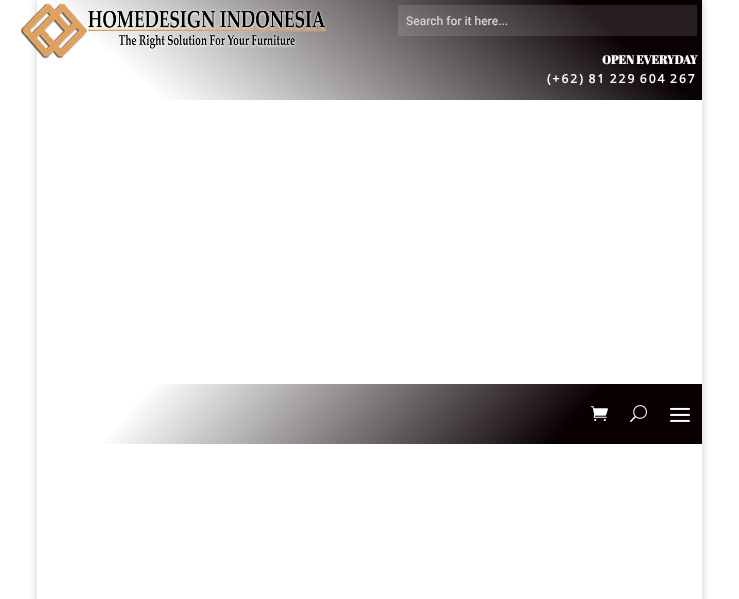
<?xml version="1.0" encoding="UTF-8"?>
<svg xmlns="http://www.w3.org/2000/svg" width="739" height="599">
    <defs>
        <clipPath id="clip1"><path d="M 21 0 H 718 V 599 H 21 Z M 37 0 H 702 V 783 H 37 Z" clip-rule="evenodd"/></clipPath>
        <filter id="blur1" x="-50%" y="-200%" width="200%" height="500%"><feGaussianBlur stdDeviation="5"/></filter>
        <linearGradient id="g1" gradientUnits="userSpaceOnUse" x1="532" y1="-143" x2="207" y2="243"><stop offset="0.16" stop-color="#0A0102"/><stop offset="0.84" stop-color="#FFFFFF"/></linearGradient>
        <linearGradient id="g2" gradientUnits="userSpaceOnUse" x1="532" y1="-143" x2="207" y2="243"><stop offset="0.16" stop-color="#271F20"/><stop offset="0.84" stop-color="#FFFFFF"/></linearGradient>
        <linearGradient id="g3" gradientUnits="userSpaceOnUse" x1="568" y1="593" x2="171" y2="235"><stop offset="0.21" stop-color="#0A0001"/><stop offset="0.84" stop-color="#FFFFFF"/></linearGradient>
    </defs>
    <rect width="100%" height="100%" fill="#FFFFFF"/>
    <g clip-path="url(#clip1)">
        <rect x="37" y="0" width="665" height="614" fill="#000000" fill-opacity="0.2" filter="url(#blur1)"/>
    </g>
    <rect x="50" y="0" width="652" height="100" fill="url(#g1)"/>
    <rect x="398" y="5" width="299" height="31" fill="url(#g2)"/>
    <image x="20" y="3" width="307" height="56" href="img_01.png"/>
    <text x="406" y="25" font-family="Roboto" font-size="12" font-weight="500" fill="#D4D2D2">Search for it here...</text>
    <text x="602" y="64" font-family="Abril Fatface" font-size="12" font-weight="700" fill="#FFFFFF">OPEN EVERYDAY</text>
    <text x="547" y="83" font-family="Noto Sans Indic Siyaq Numbers" font-size="12" font-weight="700" letter-spacing="2" fill="#FFFFFF">(+62) 81 229 604 267</text>
    <rect x="103" y="384" width="599" height="60" fill="url(#g3)"/>
    <image x="591" y="406" width="17" height="15" href="img_02.png"/>
    <image x="630" y="405" width="17" height="18" href="img_03.png"/>
    <image x="670" y="407" width="20" height="15" href="img_04.png"/>
</svg>
